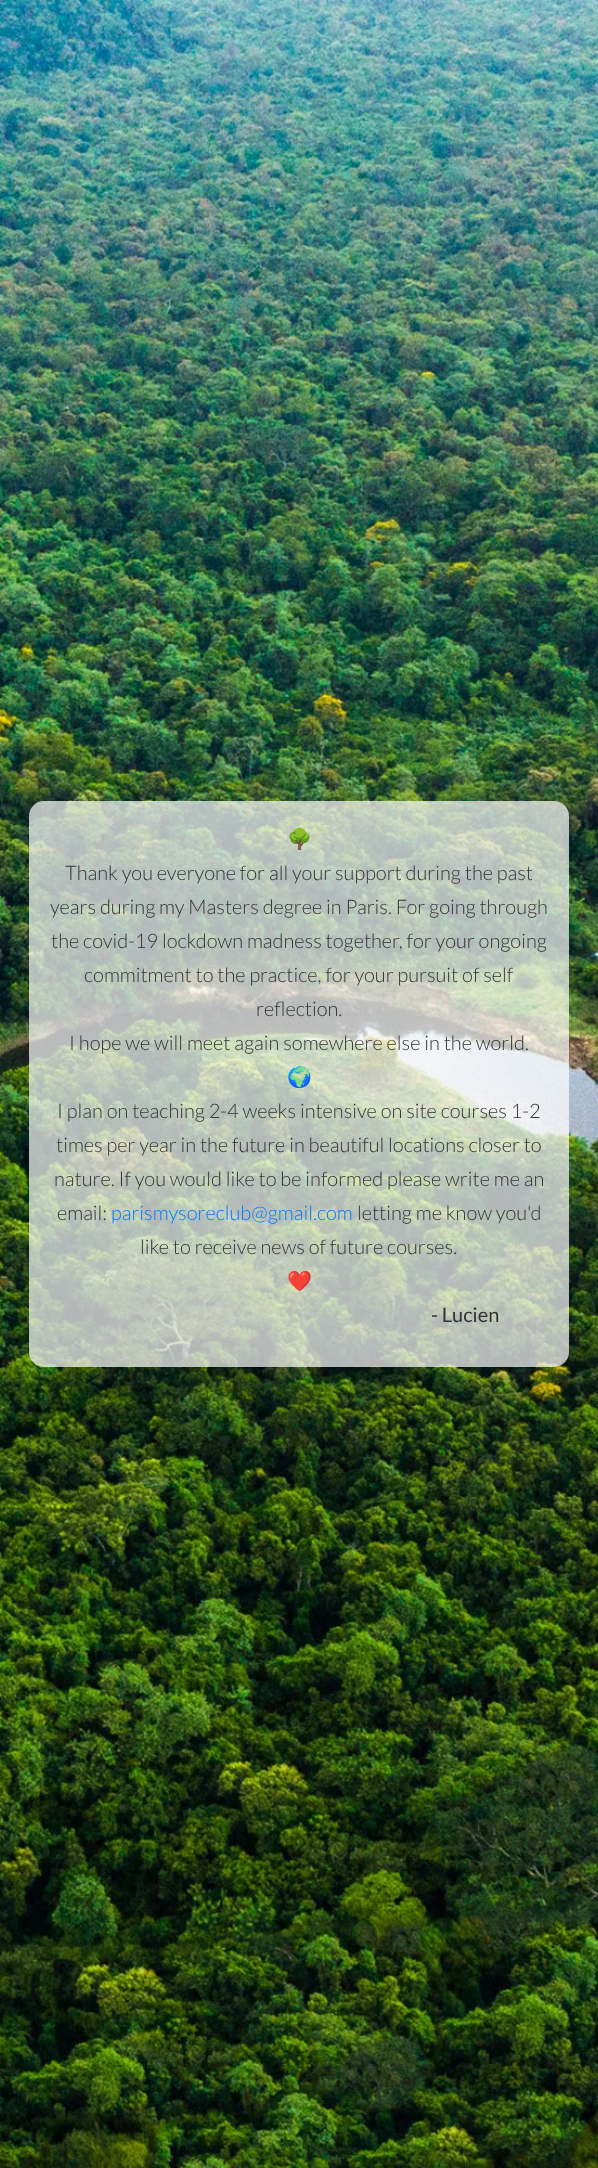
<?xml version="1.0" encoding="UTF-8"?>
<svg xmlns="http://www.w3.org/2000/svg" width="598" height="2168">
    <rect width="100%" height="100%" fill="#FFFFFF"/>
    <image x="0" y="0" width="598" height="2168" href="img_01.png"/>
    <rect x="29" y="801" width="540" height="566" rx="15" fill="#FFFFFF" fill-opacity="0.7"/>
    <text x="287" y="846" font-family="Noto Color Emoji" font-size="20" fill="#333333">🌳</text>
    <text x="65" y="880" font-family="Lato" font-size="20" font-weight="300" fill="#333333">Thank you everyone for all your support during the past</text>
    <text x="50" y="914" font-family="Lato" font-size="20" font-weight="300" fill="#333333">years during my Masters degree in Paris. For going through</text>
    <text x="51" y="948" font-family="Lato" font-size="20" font-weight="300" fill="#333333">the covid-19 lockdown madness together, for your ongoing</text>
    <text x="84" y="982" font-family="Lato" font-size="20" font-weight="300" fill="#333333">commitment to the practice, for your pursuit of self</text>
    <text x="256" y="1016" font-family="Lato" font-size="20" font-weight="300" fill="#333333">reflection.</text>
    <text x="69" y="1050" font-family="Lato" font-size="20" font-weight="300" fill="#333333">I hope we will meet again somewhere else in the world.</text>
    <text x="287" y="1084" font-family="Noto Color Emoji" font-size="20" fill="#333333">🌍</text>
    <text x="57" y="1118" font-family="Lato" font-size="20" font-weight="300" fill="#333333">I plan on teaching 2-4 weeks intensive on site courses 1-2</text>
    <text x="56" y="1152" font-family="Lato" font-size="20" font-weight="300" fill="#333333">times per year in the future in beautiful locations closer to</text>
    <text x="54" y="1186" font-family="Lato" font-size="20" font-weight="300" fill="#333333">nature. If you would like to be informed please write me an</text>
    <text x="57" y="1220" font-family="Lato" font-size="20" font-weight="300" fill="#333333">email:</text>
    <text x="111" y="1220" font-family="Lato" font-size="20" font-weight="300" fill="#007BFF">parismysoreclub@gmail.com</text>
    <text x="357" y="1220" font-family="Lato" font-size="20" font-weight="300" fill="#333333">letting me know you'd</text>
    <text x="140" y="1254" font-family="Lato" font-size="20" font-weight="300" fill="#333333">like to receive news of future courses.</text>
    <text x="287" y="1288" font-family="Noto Color Emoji" font-size="20" fill="#333333">❤️</text>
    <text x="431" y="1322" font-family="Lato" font-size="20" fill="#333333">- Lucien</text>
</svg>
